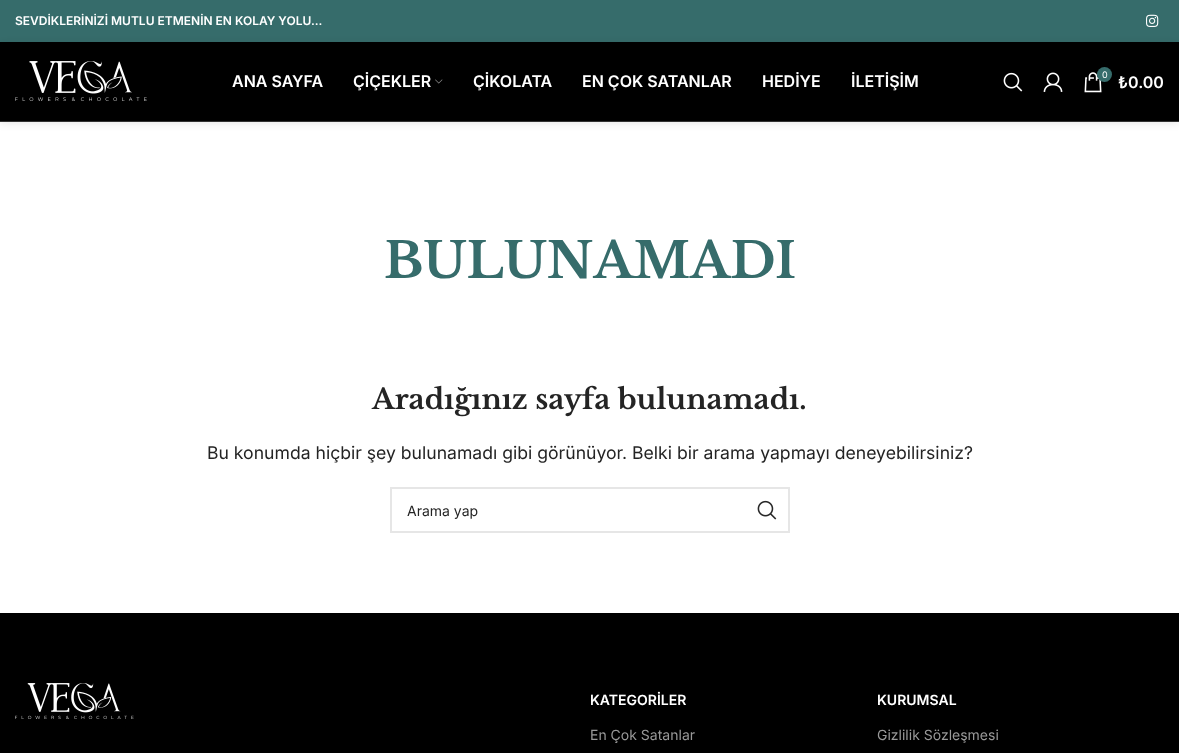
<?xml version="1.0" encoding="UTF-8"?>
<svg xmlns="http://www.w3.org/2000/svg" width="1179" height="753">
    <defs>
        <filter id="blur1" x="-50%" y="-200%" width="200%" height="500%"><feGaussianBlur stdDeviation="4"/></filter>
    </defs>
    <rect width="100%" height="100%" fill="#FFFFFF"/>
    <rect x="0" y="0" width="1179" height="42" fill="#366C6B"/>
    <text x="15" y="25" font-family="Inter" font-size="12" font-weight="600" fill="#FFFFFF">SEVDİKLERİNİZİ MUTLU ETMENİN EN KOLAY YOLU...</text>
    <image x="1146" y="14" width="13" height="13" href="img_01.png"/>
    <rect x="0" y="43" width="1179" height="80" fill="#000000" fill-opacity="0.1" filter="url(#blur1)"/>
    <rect x="0" y="42" width="1179" height="79" fill="#000000"/>
    <rect x="0" y="121" width="1179" height="1" fill="#333333"/>
    <image x="15" y="61" width="132" height="40" href="img_02.png"/>
    <text x="232" y="87" font-family="Inter" font-size="16" font-weight="600" fill="#FFFFFF">ANA SAYFA</text>
    <text x="353" y="87" font-family="Inter" font-size="16" font-weight="600" fill="#FFFFFF">ÇİÇEKLER</text>
    <image x="435" y="79" width="8" height="5" href="img_03.png"/>
    <text x="473" y="87" font-family="Inter" font-size="16" font-weight="600" fill="#FFFFFF">ÇİKOLATA</text>
    <text x="582" y="87" font-family="Inter" font-size="16" font-weight="600" fill="#FFFFFF">EN ÇOK SATANLAR</text>
    <text x="762" y="87" font-family="Inter" font-size="16" font-weight="600" fill="#FFFFFF">HEDİYE</text>
    <text x="851" y="87" font-family="Inter" font-size="16" font-weight="600" fill="#FFFFFF">İLETİŞİM</text>
    <image x="1003" y="72" width="20" height="20" href="img_04.png"/>
    <image x="1043" y="72" width="20" height="20" href="img_05.png"/>
    <image x="1084" y="72" width="18" height="21" href="img_06.png"/>
    <circle cx="1104.5" cy="74.5" r="7.5" fill="#366C6B"/>
    <text x="1102" y="78" font-family="Inter" font-size="9" fill="#FFFFFF">0</text>
    <text x="1118" y="88" font-family="Inter" font-size="16" font-weight="600" fill="#FFFFFF">₺0.00</text>
    <text x="384" y="278" font-family="Libre Baskerville" font-size="49.5" font-weight="700" fill="#366C6B">BULUNAMADI</text>
    <text x="372" y="409" font-family="Libre Baskerville" font-size="28" font-weight="700" fill="#242424">Aradığınız sayfa bulunamadı.</text>
    <text x="207" y="459" font-family="Inter" font-size="17.6" fill="#242424">Bu konumda hiçbir şey bulunamadı gibi görünüyor. Belki bir arama yapmayı deneyebilirsiniz?</text>
    <rect x="391" y="488" width="398" height="44" fill="none" stroke="#E6E6E6" stroke-width="2"/>
    <text x="407" y="516" font-family="Inter" font-size="14" fill="#242424">Arama yap</text>
    <image x="757" y="500" width="20" height="20" href="img_07.png"/>
    <rect x="0" y="613" width="1179" height="140" fill="#000000"/>
    <image x="15" y="683" width="119" height="36" href="img_08.png"/>
    <text x="590" y="705" font-family="Inter" font-size="14" font-weight="600" fill="#FFFFFF">KATEGORİLER</text>
    <text x="590" y="740" font-family="Inter" font-size="14" fill="#999999">En Çok Satanlar</text>
    <text x="877" y="705" font-family="Inter" font-size="14" font-weight="600" fill="#FFFFFF">KURUMSAL</text>
    <text x="877" y="740" font-family="Inter" font-size="14" fill="#999999">Gizlilik Sözleşmesi</text>
</svg>
